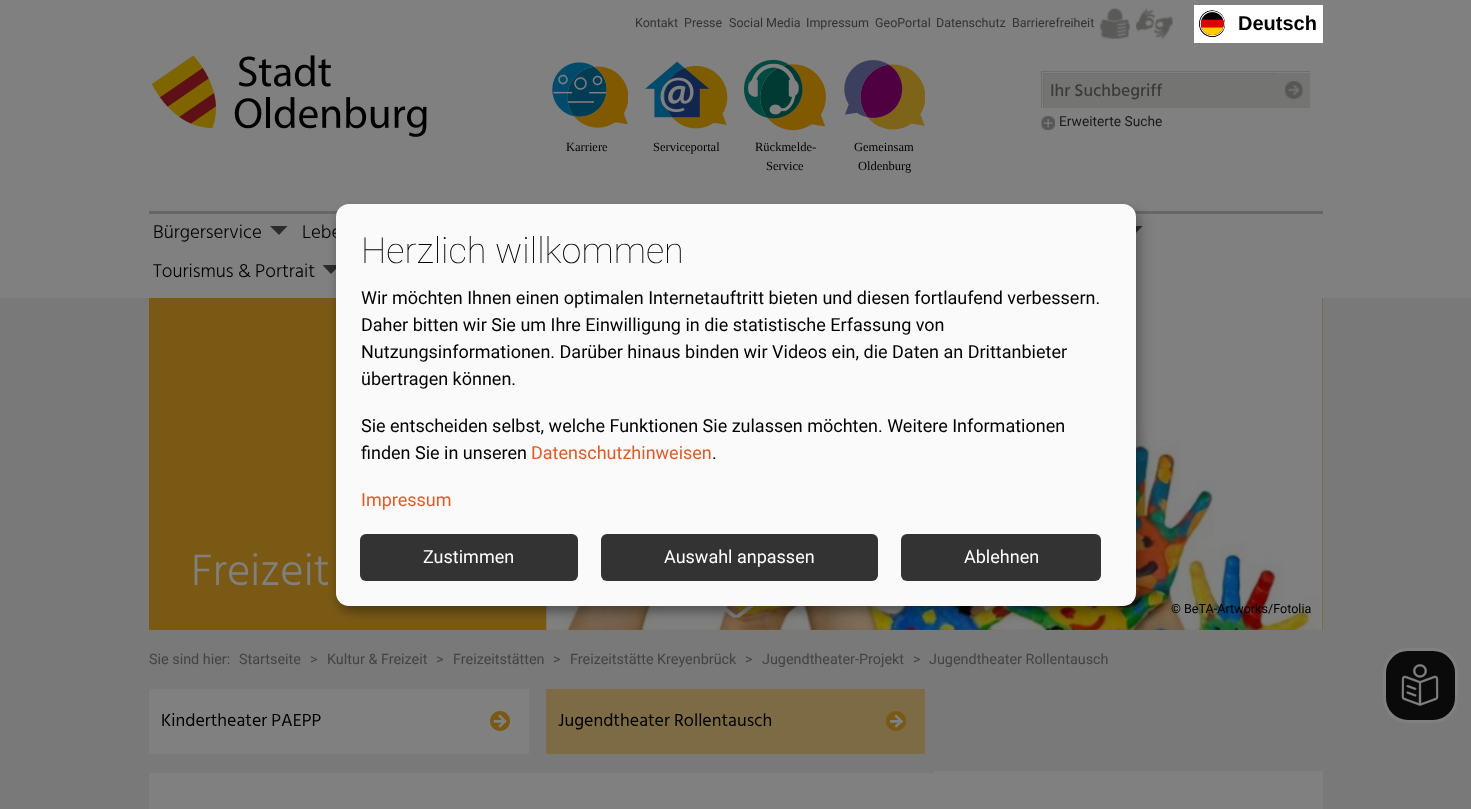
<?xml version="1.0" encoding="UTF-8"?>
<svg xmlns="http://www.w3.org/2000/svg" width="1471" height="809">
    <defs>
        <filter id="blur1" x="-50%" y="-200%" width="200%" height="500%"><feGaussianBlur stdDeviation="6"/></filter>
        <filter id="blur2" x="-50%" y="-200%" width="200%" height="500%"><feGaussianBlur stdDeviation="4"/></filter>
    </defs>
    <rect width="100%" height="100%" fill="#797979"/>
    <rect x="0" y="0" width="1471" height="298" fill="#808080"/>
    <text x="635" y="27" font-family="Roboto" font-size="12.5" fill="#333333">Kontakt</text>
    <text x="684" y="27" font-family="Roboto" font-size="12.5" fill="#333333">Presse</text>
    <text x="729" y="27" font-family="Roboto" font-size="12.5" fill="#333333">Social Media</text>
    <text x="806" y="27" font-family="Roboto" font-size="12.5" fill="#333333">Impressum</text>
    <text x="875" y="27" font-family="Roboto" font-size="12.5" fill="#333333">GeoPortal</text>
    <text x="936" y="27" font-family="Roboto" font-size="12.5" fill="#333333">Datenschutz</text>
    <text x="1012" y="27" font-family="Roboto" font-size="12.5" fill="#333333">Barrierefreiheit</text>
    <image x="1100" y="8" width="30" height="31" href="img_01.png"/>
    <image x="1136" y="8" width="37" height="31" href="img_02.png"/>
    <rect x="1194" y="5" width="129" height="38" fill="#FFFFFF"/>
    <image x="1199" y="10" width="26" height="28" href="img_03.png"/>
    <text x="1238" y="30" font-family="Liberation Sans" font-size="20" font-weight="700" fill="#000000">Deutsch</text>
    <image x="151" y="55" width="276" height="82" href="img_04.png"/>
    <rect x="1041" y="71" width="269" height="1" fill="#6E6E6D"/>
    <rect x="1041" y="71" width="1" height="37" fill="#6E6E6D"/>
    <rect x="1044" y="74" width="231" height="34" fill="#747473"/>
    <rect x="1043" y="73" width="232" height="1" fill="#6E6E6D"/>
    <rect x="1043" y="73" width="1" height="35" fill="#6E6E6D"/>
    <text x="1050" y="96" font-family="Hind Siliguri" font-size="17.5" font-weight="500" fill="#3B3B3B">Ihr Suchbegriff</text>
    <rect x="1275" y="73" width="35" height="35" fill="#747473"/>
    <image x="1285" y="81" width="18" height="18" href="img_05.png"/>
    <image x="1041" y="116" width="14" height="14" href="img_06.png"/>
    <text x="1059" y="126" font-family="Roboto" font-size="13.75" fill="#1A1A1A">Erweiterte Suche</text>
    <image x="552" y="62" width="76" height="66" href="img_07.png"/>
    <text x="566" y="151" font-family="Liberation Serif" font-size="12.5" fill="#000000">Karriere</text>
    <image x="645" y="61" width="83" height="68" href="img_08.png"/>
    <text x="653" y="151" font-family="Liberation Serif" font-size="12.5" fill="#000000">Serviceportal</text>
    <image x="744" y="59" width="82" height="72" href="img_09.png"/>
    <text x="755" y="151" font-family="Liberation Serif" font-size="12.5" fill="#000000">Rückmelde-</text>
    <text x="766" y="170" font-family="Liberation Serif" font-size="12.5" fill="#000000">Service</text>
    <image x="844" y="60" width="81" height="70" href="img_10.png"/>
    <text x="854" y="151" font-family="Liberation Serif" font-size="12.5" fill="#000000">Gemeinsam</text>
    <text x="858" y="170" font-family="Liberation Serif" font-size="12.5" fill="#000000">Oldenburg</text>
    <rect x="149" y="211" width="1174" height="3" fill="#666666"/>
    <text x="153" y="238" font-family="Hind Siliguri" font-size="19" font-weight="300" fill="#000000">Bürgerservice</text>
    <path d="M 270 226 H 287.5 L 279 235 Z" fill="#2B2B2B"/>
    <text x="302" y="238" font-family="Hind Siliguri" font-size="19" font-weight="300" fill="#000000">Lebe</text>
    <path d="M 1125 226 H 1142.5 L 1134 235 Z" fill="#2B2B2B"/>
    <text x="153" y="277" font-family="Hind Siliguri" font-size="19" font-weight="300" fill="#000000">Tourismus &amp; Portrait</text>
    <path d="M 322.5 265 H 340 L 331 274 Z" fill="#2B2B2B"/>
    <rect x="149" y="298" width="1174" height="332" fill="#7A5915"/>
    <image x="546" y="298" width="777" height="332" href="img_11.png"/>
    <image x="721" y="606" width="34" height="12" href="img_12.png"/>
    <rect x="343" y="210" width="800" height="403" rx="13" fill="#000000" fill-opacity="0.19" filter="url(#blur1)"/>
    <rect x="336" y="209" width="800" height="402" rx="13" fill="#000000" fill-opacity="0.2" filter="url(#blur2)"/>
    <rect x="336" y="204" width="800" height="402" rx="13" fill="#FAFAFA"/>
    <text x="361" y="263" font-family="Roboto" font-size="36" font-weight="100" fill="#000000">Herzlich willkommen</text>
    <text font-family="Roboto" font-size="18" fill="#000000">
        <tspan x="361" y="304">Wir möchten Ihnen einen optimalen Internetauftritt bieten und diesen fortlaufend verbessern.</tspan>
        <tspan x="361" y="331">Daher bitten wir Sie um Ihre Einwilligung in die statistische Erfassung von</tspan>
        <tspan x="361" y="358">Nutzungsinformationen. Darüber hinaus binden wir Videos ein, die Daten an Drittanbieter</tspan>
        <tspan x="361" y="385">übertragen können.</tspan>
    </text>
    <text font-family="Roboto" font-size="18" fill="#000000">
        <tspan x="361" y="432">Sie entscheiden selbst, welche Funktionen Sie zulassen möchten. Weitere Informationen</tspan>
        <tspan x="361" y="459">finden Sie in unseren</tspan>
    </text>
    <text x="531" y="459" font-family="Roboto" font-size="18" fill="#E15B2A">Datenschutzhinweisen</text>
    <text x="712" y="459" font-family="Roboto" font-size="18" fill="#000000">.</text>
    <text x="361" y="506" font-family="Roboto" font-size="18" fill="#E15B2A">Impressum</text>
    <rect x="360" y="534" width="218" height="47" rx="6" fill="#333333"/>
    <text x="423" y="563" font-family="Roboto" font-size="18" fill="#FFFFFF">Zustimmen</text>
    <rect x="601" y="534" width="277" height="47" rx="6" fill="#333333"/>
    <text x="664" y="563" font-family="Roboto" font-size="18" fill="#FFFFFF">Auswahl anpassen</text>
    <rect x="901" y="534" width="200" height="47" rx="6" fill="#333333"/>
    <text x="964" y="563" font-family="Roboto" font-size="18" fill="#FFFFFF">Ablehnen</text>
    <text x="191" y="585" font-family="Hind Siliguri" font-size="45" font-weight="300" fill="#808080">Freizeit</text>
    <text x="1171" y="613" font-family="Roboto" font-size="12.6" fill="#000000">© BeTA-Artworks/Fotolia</text>
    <text x="149" y="664" font-family="Roboto" font-size="14.4" fill="#434343">Sie sind hier:</text>
    <text x="239" y="664" font-family="Roboto" font-size="14.4" fill="#434343">Startseite</text>
    <text x="310" y="664" font-family="Roboto" font-size="14.4" fill="#434343">&gt;</text>
    <text x="327" y="664" font-family="Roboto" font-size="14.4" fill="#434343">Kultur &amp; Freizeit</text>
    <text x="436" y="664" font-family="Roboto" font-size="14.4" fill="#434343">&gt;</text>
    <text x="453" y="664" font-family="Roboto" font-size="14.4" fill="#434343">Freizeitstätten</text>
    <text x="553" y="664" font-family="Roboto" font-size="14.4" fill="#434343">&gt;</text>
    <text x="570" y="664" font-family="Roboto" font-size="14.4" fill="#434343">Freizeitstätte Kreyenbrück</text>
    <text x="745" y="664" font-family="Roboto" font-size="14.4" fill="#434343">&gt;</text>
    <text x="762" y="664" font-family="Roboto" font-size="14.4" fill="#434343">Jugendtheater-Projekt</text>
    <text x="913" y="664" font-family="Roboto" font-size="14.4" fill="#434343">&gt;</text>
    <text x="929" y="664" font-family="Roboto" font-size="14.4" fill="#434343">Jugendtheater Rollentausch</text>
    <rect x="149" y="689" width="380" height="65" fill="#808080"/>
    <rect x="149" y="771" width="1174" height="38" fill="#808080"/>
    <rect x="149" y="771" width="389" height="2" fill="#797979"/>
    <image x="490" y="711" width="20" height="20" href="img_13.png"/>
    <text x="161" y="726" font-family="Hind Siliguri" font-size="18" fill="#000000">Kindertheater PAEPP</text>
    <rect x="546" y="689" width="379" height="65" fill="#7C6B45"/>
    <rect x="538" y="771" width="396" height="2" fill="#797979"/>
    <image x="886" y="711" width="20" height="20" href="img_14.png"/>
    <text x="558" y="726" font-family="Hind Siliguri" font-size="18" fill="#000000">Jugendtheater Rollentausch</text>
    <rect x="1384.5" y="649.5" width="72" height="72" rx="23.5" fill="#0B0A0A" stroke="#808080" stroke-width="3"/>
    <image x="1401" y="664" width="38" height="42" href="img_15.png"/>
</svg>
